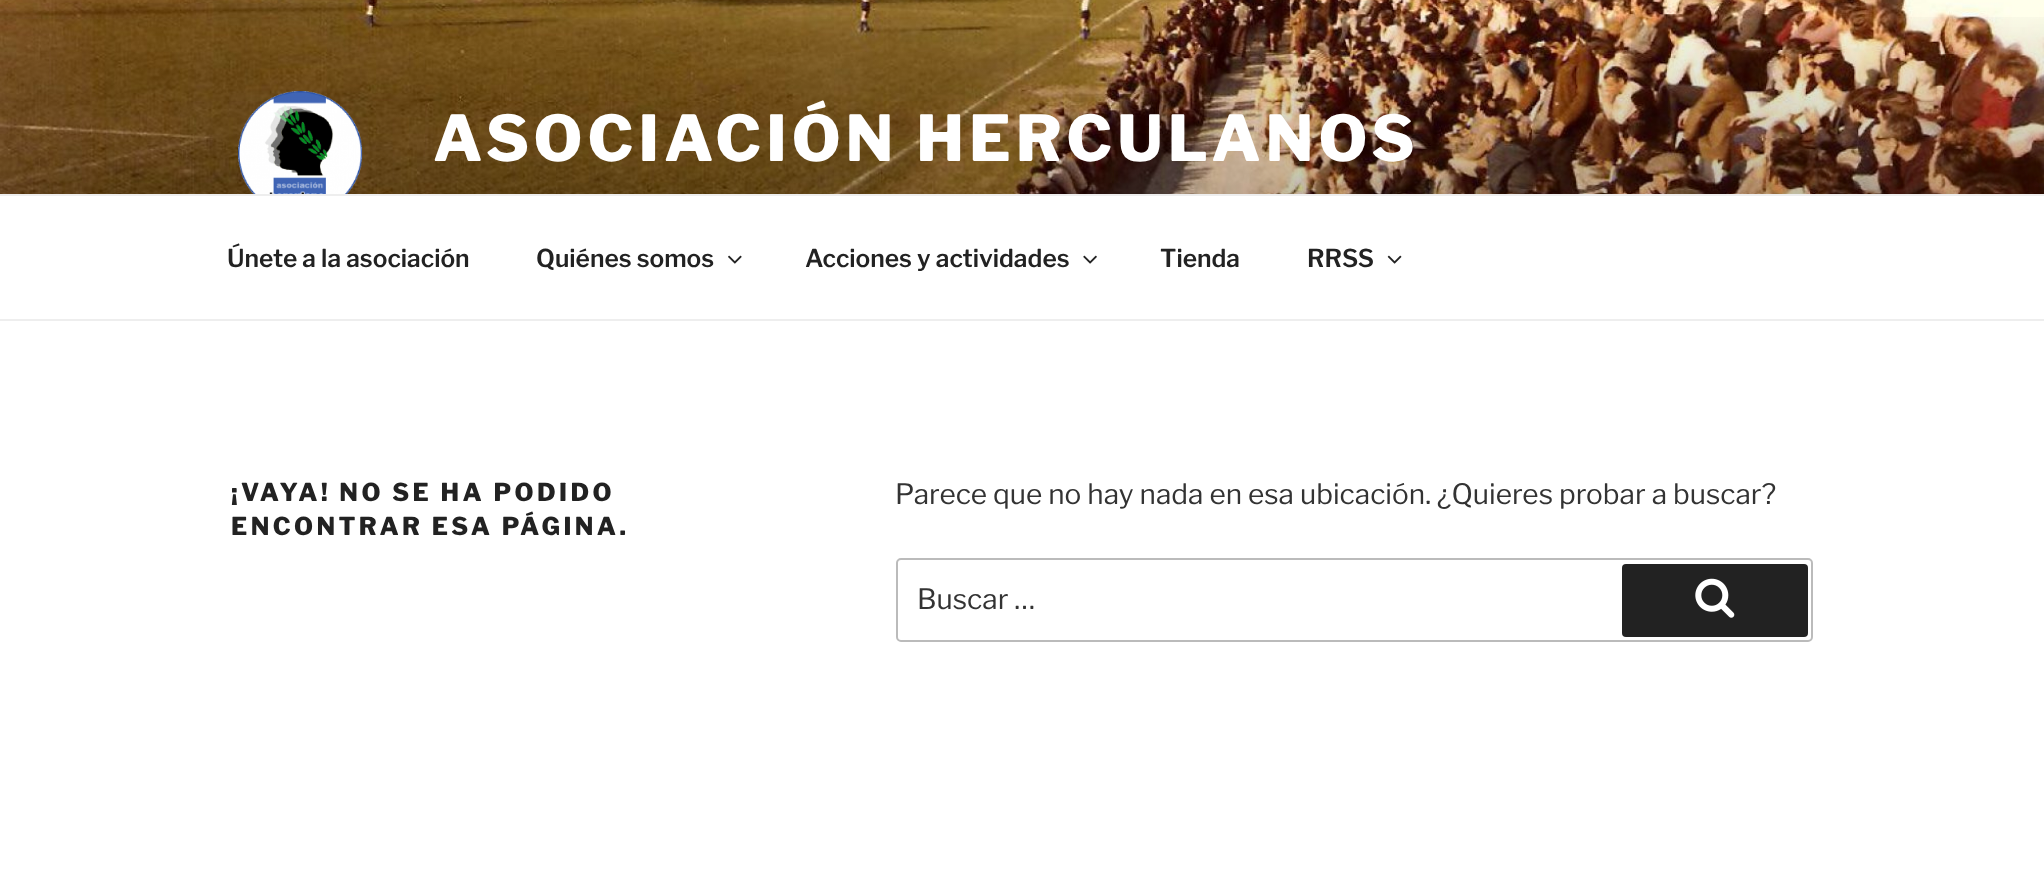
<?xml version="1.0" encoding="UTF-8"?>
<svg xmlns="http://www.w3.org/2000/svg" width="2044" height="876">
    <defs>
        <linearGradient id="g1" gradientUnits="userSpaceOnUse" x1="1022" y1="0" x2="1022" y2="320"><stop offset="0" stop-color="#000000" stop-opacity="0"/><stop offset="0.75" stop-color="#000000" stop-opacity="0.3"/><stop offset="1" stop-color="#000000" stop-opacity="0.3"/></linearGradient>
    </defs>
    <rect width="100%" height="100%" fill="#FFFFFF"/>
    <image x="0" y="0" width="2044" height="194" href="img_01.png"/>
    <rect x="0" y="17" width="2044" height="177" fill="url(#g1)"/>
    <image x="238" y="91" width="125" height="103" href="img_02.png"/>
    <text x="433" y="161" font-family="Libre Franklin" font-size="63" font-weight="800" letter-spacing="5" fill="#FFFFFF">ASOCIACIÓN HERCULANOS</text>
    <rect x="0" y="194" width="2044" height="2" fill="#EEEEEE"/>
    <rect x="0" y="319" width="2044" height="2" fill="#EEEEEE"/>
    <text x="227" y="267" font-family="Libre Franklin" font-size="24.5" font-weight="600" fill="#222222">Únete a la asociación</text>
    <text x="536" y="267" font-family="Libre Franklin" font-size="24.5" font-weight="600" fill="#222222">Quiénes somos</text>
    <image x="728" y="255" width="14" height="9" href="img_03.png"/>
    <text x="805" y="267" font-family="Libre Franklin" font-size="24.5" font-weight="600" fill="#222222">Acciones y actividades</text>
    <image x="1083" y="255" width="14" height="9" href="img_04.png"/>
    <text x="1160" y="267" font-family="Libre Franklin" font-size="24.5" font-weight="600" fill="#222222">Tienda</text>
    <text x="1307" y="267" font-family="Libre Franklin" font-size="24.5" font-weight="600" fill="#222222">RRSS</text>
    <image x="1387" y="255" width="15" height="9" href="img_05.png"/>
    <text font-family="Libre Franklin" font-size="24.5" font-weight="800" letter-spacing="3.4" fill="#222222">
        <tspan x="231" y="501">¡VAYA! NO SE HA PODIDO</tspan>
        <tspan x="231" y="535">ENCONTRAR ESA PÁGINA.</tspan>
    </text>
    <text x="895" y="504" font-family="Libre Franklin" font-size="28" fill="#333333">Parece que no hay nada en esa ubicación. ¿Quieres probar a buscar?</text>
    <rect x="897" y="559" width="915" height="82" rx="4" fill="none" stroke="#BBBBBB" stroke-width="2"/>
    <text x="917" y="609" font-family="Libre Franklin" font-size="28" fill="#333333">Buscar …</text>
    <rect x="1622" y="564" width="186" height="73" rx="4" fill="#222222"/>
    <image x="1695" y="578" width="40" height="40" href="img_06.png"/>
</svg>
